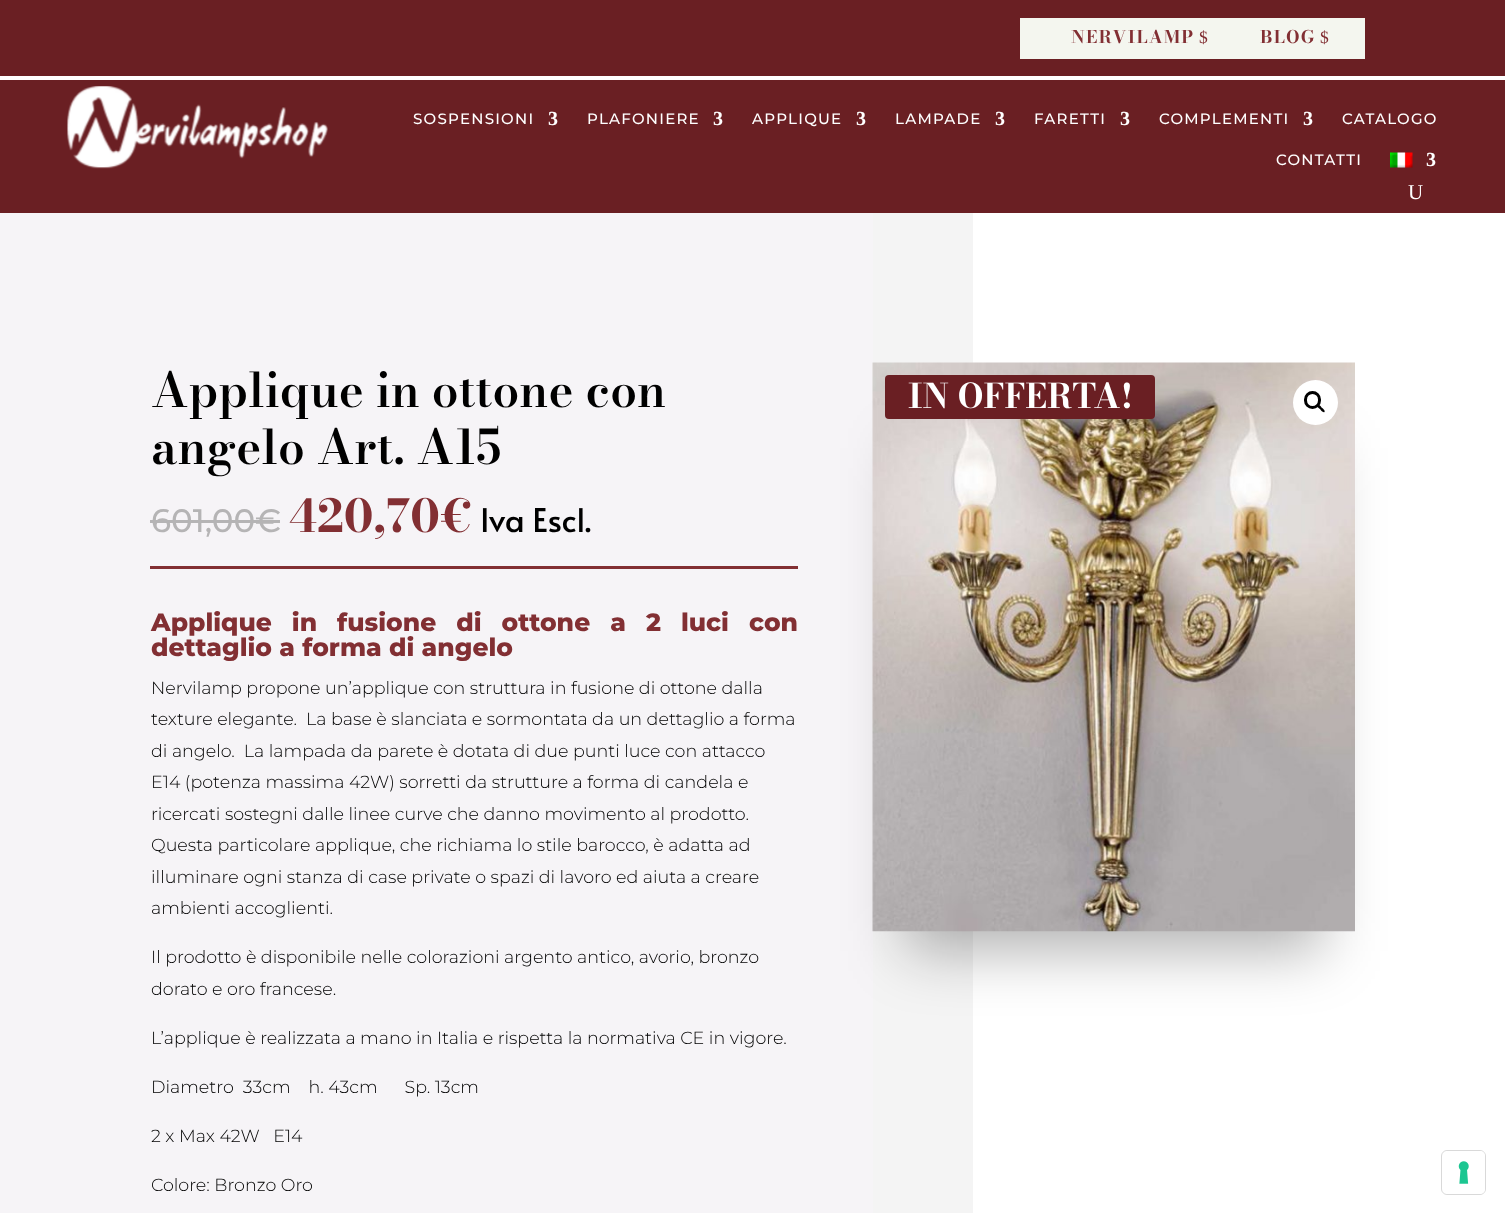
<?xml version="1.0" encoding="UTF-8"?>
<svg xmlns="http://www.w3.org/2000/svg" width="1505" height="1213">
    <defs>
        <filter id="blur1" x="-50%" y="-200%" width="200%" height="500%"><feGaussianBlur stdDeviation="30"/></filter>
    </defs>
    <rect width="100%" height="100%" fill="#FFFFFF"/>
    <rect x="0" y="0" width="1505" height="76" fill="#6A1F23"/>
    <rect x="1020" y="18" width="345" height="41" fill="#F4F6EF"/>
    <text x="1071" y="43" font-family="Bodoni Moda" font-size="17.5" font-weight="700" letter-spacing="1.25" fill="#822F33">NERVILAMP</text>
    <text x="1199" y="43" font-family="Liberation Serif" font-size="17.5" letter-spacing="1.25" fill="#822F33">$</text>
    <text x="1260" y="43" font-family="Bodoni Moda" font-size="17.5" font-weight="700" letter-spacing="1.25" fill="#822F33">BLOG</text>
    <text x="1320" y="43" font-family="Liberation Serif" font-size="17.5" letter-spacing="1.25" fill="#822F33">$</text>
    <rect x="0" y="80" width="1505" height="133" fill="#6A1F23"/>
    <image x="67" y="86" width="261" height="83" href="img_01.png"/>
    <text x="413" y="124" font-family="Montserrat" font-size="15" font-weight="100" letter-spacing="1.25" fill="#FFFFFF">SOSPENSIONI</text>
    <text x="548" y="125" font-family="Liberation Serif" font-size="20" font-weight="700" letter-spacing="1.25" fill="#FFFFFF">3</text>
    <text x="587" y="124" font-family="Montserrat" font-size="15" font-weight="100" letter-spacing="1.25" fill="#FFFFFF">PLAFONIERE</text>
    <text x="713" y="125" font-family="Liberation Serif" font-size="20" font-weight="700" letter-spacing="1.25" fill="#FFFFFF">3</text>
    <text x="752" y="124" font-family="Montserrat" font-size="15" font-weight="100" letter-spacing="1.25" fill="#FFFFFF">APPLIQUE</text>
    <text x="856" y="125" font-family="Liberation Serif" font-size="20" font-weight="700" letter-spacing="1.25" fill="#FFFFFF">3</text>
    <text x="895" y="124" font-family="Montserrat" font-size="15" font-weight="100" letter-spacing="1.25" fill="#FFFFFF">LAMPADE</text>
    <text x="995" y="125" font-family="Liberation Serif" font-size="20" font-weight="700" letter-spacing="1.25" fill="#FFFFFF">3</text>
    <text x="1034" y="124" font-family="Montserrat" font-size="15" font-weight="100" letter-spacing="1.25" fill="#FFFFFF">FARETTI</text>
    <text x="1120" y="125" font-family="Liberation Serif" font-size="20" font-weight="700" letter-spacing="1.25" fill="#FFFFFF">3</text>
    <text x="1159" y="124" font-family="Montserrat" font-size="15" font-weight="100" letter-spacing="1.25" fill="#FFFFFF">COMPLEMENTI</text>
    <text x="1303" y="125" font-family="Liberation Serif" font-size="20" font-weight="700" letter-spacing="1.25" fill="#FFFFFF">3</text>
    <text x="1342" y="124" font-family="Montserrat" font-size="15" font-weight="100" letter-spacing="1.25" fill="#FFFFFF">CATALOGO</text>
    <text x="1276" y="165" font-family="Montserrat" font-size="15" font-weight="100" letter-spacing="1.25" fill="#FFFFFF">CONTATTI</text>
    <image x="1390" y="152" width="23" height="16" href="img_02.png"/>
    <text x="1426" y="166" font-family="Liberation Serif" font-size="20" font-weight="700" letter-spacing="1.25" fill="#FFFFFF">3</text>
    <text x="1408" y="199" font-family="Liberation Serif" font-size="21" fill="#FFFFFF">U</text>
    <path d="M -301 213 V 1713 H 904 V 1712 H 150 V 213 Z" fill="#F6F4F7"/>
    <path d="M 250 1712 V 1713 H 973 V 213 H 872 V 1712 Z" fill="#F4F4F4"/>
    <rect x="150" y="213" width="723" height="1000" fill="#F6F4F7"/>
    <text font-family="Bodoni Moda" font-size="47.5" font-weight="600" fill="#000000">
        <tspan x="151" y="407">Applique in ottone con</tspan>
        <tspan x="151" y="464">angelo Art. A15</tspan>
    </text>
    <text x="151" y="532" font-family="Montserrat" font-size="32.5" font-weight="100" fill="#B5B4B5">601,00€</text>
    <rect x="150" y="520" width="130" height="3" fill="#B5B4B5"/>
    <text x="288" y="532" font-family="Bodoni Moda" font-size="45" font-weight="700" fill="#822F33">420,70€</text>
    <text x="480" y="532" font-family="Alata" font-size="32.5" fill="#000000">Iva Escl.</text>
    <rect x="150" y="566" width="648" height="3" fill="#822F33"/>
    <text font-family="'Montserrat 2'" font-size="25" font-weight="100" fill="#822F33">
        <tspan x="151" y="631" word-spacing="12.75">Applique in fusione di ottone a 2 luci con</tspan>
        <tspan x="151" y="656">dettaglio a forma di angelo</tspan>
    </text>
    <text font-family="'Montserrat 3'" font-size="17.5" font-weight="100" fill="#000000" xml:space="preserve"><tspan x="151" y="694">Nervilamp propone un’applique con struttura in fusione di ottone dalla</tspan><tspan x="151" y="725">texture elegante.  La base è slanciata e sormontata da un dettaglio a forma</tspan><tspan x="151" y="757">di angelo.  La lampada da parete è dotata di due punti luce con attacco</tspan><tspan x="151" y="788">E14 (potenza massima 42W) sorretti da strutture a forma di candela e</tspan><tspan x="151" y="820">ricercati sostegni dalle linee curve che danno movimento al prodotto.</tspan><tspan x="151" y="851">Questa particolare applique, che richiama lo stile barocco, è adatta ad</tspan><tspan x="151" y="883">illuminare ogni stanza di case private o spazi di lavoro ed aiuta a creare</tspan><tspan x="151" y="914">ambienti accoglienti.</tspan></text>
    <text font-family="'Montserrat 3'" font-size="17.5" font-weight="100" fill="#000000">
        <tspan x="151" y="963">Il prodotto è disponibile nelle colorazioni argento antico, avorio, bronzo</tspan>
        <tspan x="151" y="995">dorato e oro francese.</tspan>
    </text>
    <text x="151" y="1044" font-family="'Montserrat 3'" font-size="17.5" font-weight="100" fill="#000000">L’applique è realizzata a mano in Italia e rispetta la normativa CE in vigore.</text>
    <text x="151" y="1093" font-family="'Montserrat 3'" font-size="17.5" font-weight="100" fill="#000000" xml:space="preserve">Diametro  33cm    h. 43cm      Sp. 13cm</text>
    <text x="151" y="1142" font-family="'Montserrat 3'" font-size="17.5" font-weight="100" fill="#000000" xml:space="preserve">2 x Max 42W   E14</text>
    <text x="151" y="1191" font-family="'Montserrat 3'" font-size="17.5" font-weight="100" fill="#000000">Colore: Bronzo Oro</text>
    <rect x="905" y="448" width="418" height="503" fill="#000000" fill-opacity="0.3" filter="url(#blur1)"/>
    <image x="872" y="362" width="483" height="570" href="img_03.png"/>
    <circle cx="1315.5" cy="402.5" r="22.5" fill="#FFFFFF"/>
    <rect x="1305.5" y="392.5" width="14" height="15" rx="7" fill="none" stroke="#000000" stroke-width="3"/>
    <path d="M 1317 404.5 C 1318.5 403.5 1321 406.5 1321.5 407.5 C 1322.5 408 1325.5 410.5 1324.5 412 C 1323 413 1320.5 410 1320 409 C 1319 408.5 1316 406 1317 404.5 Z" fill="#000000"/>
    <rect x="885" y="375" width="270" height="44" rx="4" fill="#6A1F23"/>
    <text x="908" y="408" font-family="Bodoni Moda" font-size="33.75" font-weight="700" fill="#FFFFFF">IN OFFERTA!</text>
    <rect x="1441.5" y="1150.5" width="44" height="44" rx="5.5" fill="none" stroke="#D9D9D9"/>
    <rect x="1443" y="1151" width="42" height="43" rx="5" fill="#FFFFFF"/>
    <image x="1458" y="1161" width="11" height="23" href="img_04.png"/>
</svg>
